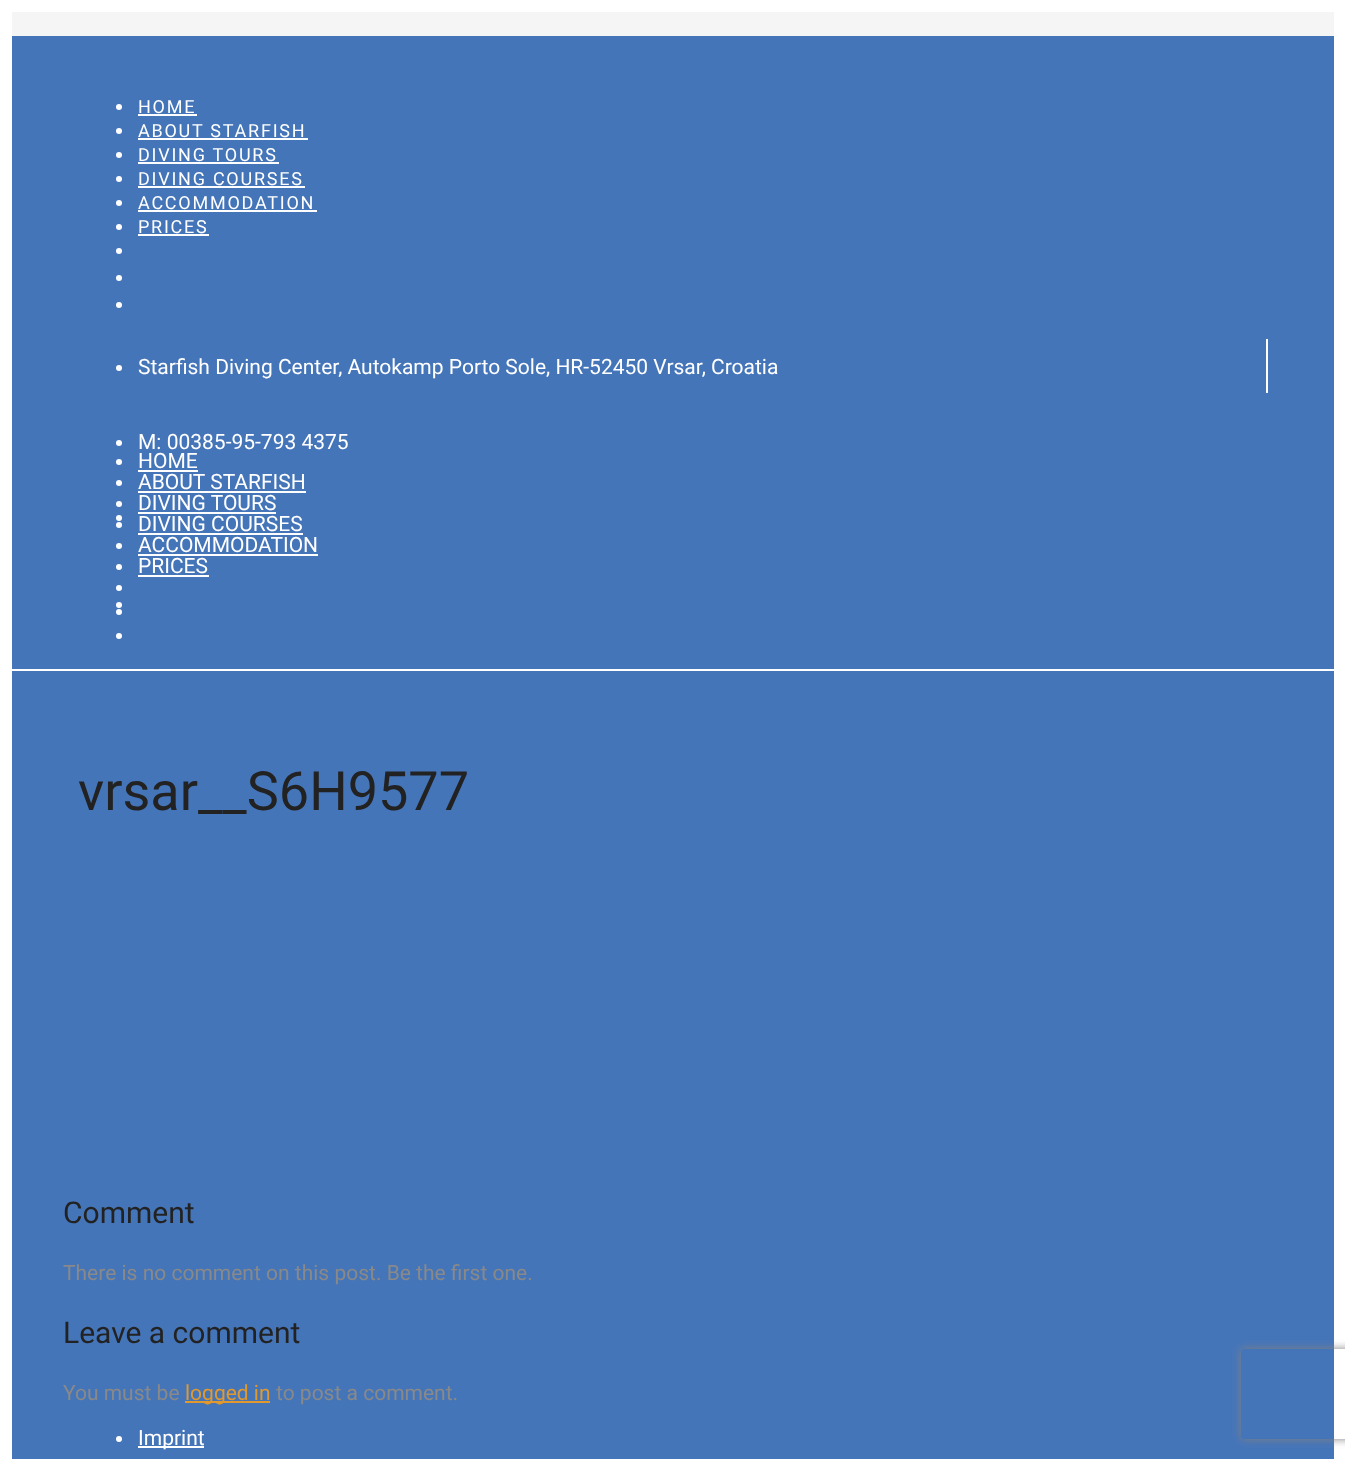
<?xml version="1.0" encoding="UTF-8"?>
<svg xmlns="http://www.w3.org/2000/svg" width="1345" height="1459">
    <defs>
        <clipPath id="clip1"><path d="M 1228 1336 H 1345 V 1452 H 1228 Z M 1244 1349 H 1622 C 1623.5 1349 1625 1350.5 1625 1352 V 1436 C 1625 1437.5 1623.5 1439 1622 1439 H 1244 C 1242.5 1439 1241 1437.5 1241 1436 V 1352 C 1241 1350.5 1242.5 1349 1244 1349 Z" clip-rule="evenodd"/></clipPath>
        <filter id="blur1" x="-50%" y="-200%" width="200%" height="500%"><feGaussianBlur stdDeviation="4"/></filter>
    </defs>
    <rect width="100%" height="100%" fill="#FFFFFF"/>
    <rect x="12" y="12" width="1322" height="24" fill="#F5F5F5"/>
    <rect x="12" y="36" width="1322" height="1423" fill="#4575B9"/>
    <circle cx="119" cy="107" r="3" fill="#FFFFFF"/>
    <text x="138" y="113" font-family="Roboto" font-size="18" letter-spacing="1.75" fill="#FFFFFF">HOME</text>
    <rect x="138" y="114" width="59" height="2" fill="#FFFFFF"/>
    <circle cx="119" cy="131" r="3" fill="#FFFFFF"/>
    <text x="138" y="137" font-family="Roboto" font-size="18" letter-spacing="1.75" fill="#FFFFFF">ABOUT STARFISH</text>
    <rect x="138" y="138" width="170" height="2" fill="#FFFFFF"/>
    <circle cx="119" cy="155" r="3" fill="#FFFFFF"/>
    <text x="138" y="161" font-family="Roboto" font-size="18" letter-spacing="1.75" fill="#FFFFFF">DIVING TOURS</text>
    <rect x="138" y="162" width="141" height="2" fill="#FFFFFF"/>
    <circle cx="119" cy="179" r="3" fill="#FFFFFF"/>
    <text x="138" y="185" font-family="Roboto" font-size="18" letter-spacing="1.75" fill="#FFFFFF">DIVING COURSES</text>
    <rect x="138" y="186" width="167" height="2" fill="#FFFFFF"/>
    <circle cx="119" cy="203" r="3" fill="#FFFFFF"/>
    <text x="138" y="209" font-family="Roboto" font-size="18" letter-spacing="1.75" fill="#FFFFFF">ACCOMMODATION</text>
    <rect x="138" y="210" width="179" height="2" fill="#FFFFFF"/>
    <circle cx="119" cy="227" r="3" fill="#FFFFFF"/>
    <text x="138" y="233" font-family="Roboto" font-size="18" letter-spacing="1.75" fill="#FFFFFF">PRICES</text>
    <rect x="138" y="234" width="71" height="2" fill="#FFFFFF"/>
    <circle cx="119" cy="251" r="3" fill="#FFFFFF"/>
    <circle cx="119" cy="278" r="3" fill="#FFFFFF"/>
    <circle cx="119" cy="305" r="3" fill="#FFFFFF"/>
    <rect x="1266" y="339" width="2" height="54" fill="#FFFFFF"/>
    <circle cx="119" cy="368" r="3" fill="#FFFFFF"/>
    <text x="138" y="374" font-family="Roboto" font-size="21" fill="#FFFFFF">Starfish Diving Center, Autokamp Porto Sole, HR-52450 Vrsar, Croatia</text>
    <circle cx="119" cy="443" r="3" fill="#FFFFFF"/>
    <text x="138" y="449" font-family="Roboto" font-size="21" fill="#FFFFFF">M: 00385-95-793 4375</text>
    <circle cx="119" cy="518" r="3" fill="#FFFFFF"/>
    <circle cx="119" cy="605" r="3" fill="#FFFFFF"/>
    <rect x="12" y="669" width="1322" height="2" fill="#FFFFFF"/>
    <circle cx="119" cy="462" r="3" fill="#FFFFFF"/>
    <text x="138" y="468" font-family="Roboto" font-size="21" fill="#FFFFFF">HOME</text>
    <rect x="138" y="470" width="60" height="2" fill="#FFFFFF"/>
    <circle cx="119" cy="483" r="3" fill="#FFFFFF"/>
    <text x="138" y="489" font-family="Roboto" font-size="21" fill="#FFFFFF">ABOUT STARFISH</text>
    <rect x="138" y="491" width="168" height="2" fill="#FFFFFF"/>
    <circle cx="119" cy="504" r="3" fill="#FFFFFF"/>
    <text x="138" y="510" font-family="Roboto" font-size="21" fill="#FFFFFF">DIVING TOURS</text>
    <rect x="138" y="512" width="138" height="2" fill="#FFFFFF"/>
    <circle cx="119" cy="525" r="3" fill="#FFFFFF"/>
    <text x="138" y="531" font-family="Roboto" font-size="21" fill="#FFFFFF">DIVING COURSES</text>
    <rect x="138" y="533" width="165" height="2" fill="#FFFFFF"/>
    <circle cx="119" cy="546" r="3" fill="#FFFFFF"/>
    <text x="138" y="552" font-family="Roboto" font-size="21" fill="#FFFFFF">ACCOMMODATION</text>
    <rect x="138" y="554" width="180" height="2" fill="#FFFFFF"/>
    <circle cx="119" cy="567" r="3" fill="#FFFFFF"/>
    <text x="138" y="573" font-family="Roboto" font-size="21" fill="#FFFFFF">PRICES</text>
    <rect x="138" y="575" width="71" height="2" fill="#FFFFFF"/>
    <circle cx="119" cy="588" r="3" fill="#FFFFFF"/>
    <circle cx="119" cy="612" r="3" fill="#FFFFFF"/>
    <circle cx="119" cy="636" r="3" fill="#FFFFFF"/>
    <text x="78" y="810" font-family="Roboto" font-size="54" fill="#222222">vrsar__S6H9577</text>
    <text x="63" y="1223" font-family="Roboto" font-size="30" fill="#222222">Comment</text>
    <text x="63" y="1280" font-family="Roboto" font-size="21" fill="#898989">There is no comment on this post. Be the first one.</text>
    <text x="63" y="1343" font-family="Roboto" font-size="30" fill="#222222">Leave a comment</text>
    <text x="63" y="1400" font-family="Roboto" font-size="21" fill="#898989">You must be</text>
    <rect x="185" y="1401" width="85" height="2" fill="#E1992E"/>
    <text x="185" y="1400" font-family="Roboto" font-size="21" fill="#E1992E">logged in</text>
    <text x="276" y="1400" font-family="Roboto" font-size="21" fill="#898989">to post a comment.</text>
    <circle cx="119" cy="1439" r="3" fill="#FFFFFF"/>
    <rect x="138" y="1446" width="66" height="2" fill="#FFFFFF"/>
    <text x="138" y="1445" font-family="Roboto" font-size="21" fill="#FFFFFF">Imprint</text>
    <g clip-path="url(#clip1)">
        <rect x="1241" y="1349" width="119" height="90" rx="3" fill="#808080" filter="url(#blur1)"/>
    </g>
</svg>
